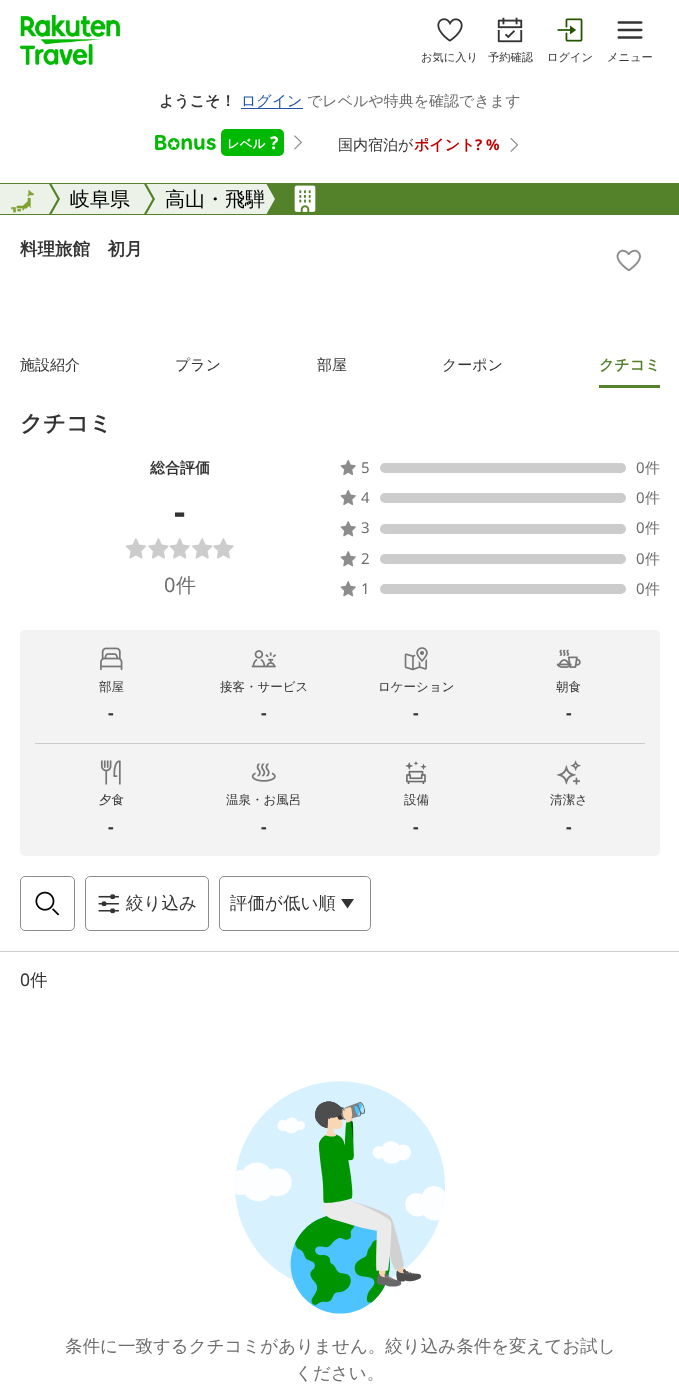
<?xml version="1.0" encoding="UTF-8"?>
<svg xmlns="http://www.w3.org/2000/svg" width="679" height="1389">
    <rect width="100%" height="100%" fill="#FFFFFF"/>
    <image x="20" y="15" width="100" height="50" href="img_01.png"/>
    <image x="437" y="18" width="26" height="24" href="img_02.png"/>
    <text x="421" y="61" font-family="WenQuanYi Zen Hei" font-size="11.25" font-weight="500" fill="#333333">お気に入り</text>
    <image x="497" y="17" width="26" height="26" href="img_03.png"/>
    <text x="488" y="61" font-family="WenQuanYi Zen Hei" font-size="11.25" font-weight="500" fill="#333333">予約確認</text>
    <image x="557" y="18" width="26" height="24" href="img_04.png"/>
    <text x="547" y="61" font-family="WenQuanYi Zen Hei" font-size="11.25" font-weight="500" fill="#333333">ログイン</text>
    <image x="617" y="21" width="26" height="18" href="img_05.png"/>
    <text x="607" y="61" font-family="WenQuanYi Zen Hei" font-size="11.25" font-weight="500" fill="#333333">メニュー</text>
    <text x="159" y="106" font-family="WenQuanYi Zen Hei" font-size="15" font-weight="700" fill="#333333">ようこそ！</text>
    <text x="241" y="106" font-family="WenQuanYi Zen Hei" font-size="15" font-weight="500" fill="#1D54A7">ログイン</text>
    <rect x="241" y="108" width="62" height="1" fill="#1D54A7"/>
    <text x="307" y="106" font-family="WenQuanYi Zen Hei" font-size="15" font-weight="500" fill="#6D6D6D">でレベルや特典を確認できます</text>
    <image x="155" y="135" width="61" height="15" href="img_06.png"/>
    <rect x="221" y="129" width="63" height="27" rx="5" fill="#00B900"/>
    <text x="227" y="148" font-family="WenQuanYi Zen Hei" font-size="12.5" font-weight="700" fill="#FFFFFF">レベル</text>
    <text x="270" y="149" font-family="Noto Sans" font-size="17.5" font-weight="700" fill="#FFFFFF">?</text>
    <image x="294" y="135" width="8" height="15" href="img_07.png"/>
    <text x="338" y="150" font-family="WenQuanYi Zen Hei" font-size="15" font-weight="500" fill="#333333">国内宿泊が</text>
    <text x="414" y="150" font-family="WenQuanYi Zen Hei" font-size="15" font-weight="700" fill="#BF0000">ポイント</text>
    <text x="475" y="150" font-family="Noto Sans" font-size="15" font-weight="700" fill="#BF0000">? %</text>
    <image x="510" y="137" width="9" height="15" href="img_08.png"/>
    <rect x="0" y="183" width="679" height="1" fill="#54822B"/>
    <rect x="0" y="214" width="679" height="1" fill="#54822B"/>
    <rect x="0" y="184" width="275" height="30" fill="#EDF2E9"/>
    <image x="11" y="190" width="23" height="23" href="img_09.png"/>
    <path d="M 49 184 H 51.5 L 60 199 H 57.5 Z M 57.5 199 H 60 L 51.5 214 H 49 Z" fill="#54822B"/>
    <text x="70" y="206" font-family="WenQuanYi Zen Hei" font-size="20" font-weight="500" fill="#000000">岐阜県</text>
    <path d="M 144 184 H 146.5 L 155 199 H 152.5 Z M 152.5 199 H 155 L 146.5 214 H 144 Z" fill="#54822B"/>
    <text x="165" y="206" font-family="WenQuanYi Zen Hei" font-size="20" font-weight="500" fill="#000000">高山・飛騨</text>
    <rect x="281" y="184" width="398" height="30" fill="#54822B"/>
    <path d="M 266.5 184 H 281.5 L 290 199 H 275 Z M 275 199 H 290 L 281.5 214 H 266.5 Z" fill="#54822B"/>
    <image x="294" y="185" width="22" height="27" href="img_10.png"/>
    <text x="20" y="255" font-family="WenQuanYi Zen Hei" font-size="17.5" font-weight="700" fill="#333333">料理旅館　初月</text>
    <image x="616" y="249" width="25" height="23" href="img_11.png"/>
    <text x="20" y="370" font-family="WenQuanYi Zen Hei" font-size="15" font-weight="500" fill="#333333">施設紹介</text>
    <text x="175" y="370" font-family="WenQuanYi Zen Hei" font-size="15" font-weight="500" fill="#333333">プラン</text>
    <text x="317" y="370" font-family="WenQuanYi Zen Hei" font-size="15" font-weight="500" fill="#333333">部屋</text>
    <text x="442" y="370" font-family="WenQuanYi Zen Hei" font-size="15" font-weight="500" fill="#333333">クーポン</text>
    <rect x="599" y="385" width="61" height="3" fill="#54822B"/>
    <text x="599" y="370" font-family="WenQuanYi Zen Hei" font-size="15" font-weight="700" fill="#54822B">クチコミ</text>
    <text x="20" y="431" font-family="WenQuanYi Zen Hei" font-size="22.5" font-weight="700" fill="#333333">クチコミ</text>
    <text x="150" y="473" font-family="WenQuanYi Zen Hei" font-size="15" font-weight="700" fill="#333333">総合評価</text>
    <text x="174" y="524" font-family="Noto Sans" font-size="35" font-weight="700" fill="#333333">-</text>
    <image x="125" y="538" width="21" height="21" href="img_12.png"/>
    <image x="148" y="538" width="21" height="21" href="img_13.png"/>
    <image x="169" y="538" width="21" height="21" href="img_14.png"/>
    <image x="192" y="538" width="21" height="21" href="img_15.png"/>
    <image x="213" y="538" width="21" height="21" href="img_13.png"/>
    <text x="164" y="592" font-family="Noto Sans" font-size="20" fill="#6D6D6D">0</text>
    <text x="176" y="592" font-family="WenQuanYi Zen Hei" font-size="20" font-weight="500" fill="#6D6D6D">件</text>
    <image x="340" y="459" width="16" height="17" href="img_16.png"/>
    <text x="361" y="473" font-family="Noto Sans" font-size="15" fill="#6D6D6D">5</text>
    <rect x="380" y="463" width="246" height="10" rx="5" fill="#CCCCCC"/>
    <text x="636" y="473" font-family="Noto Sans" font-size="15" fill="#6D6D6D">0</text>
    <text x="645" y="473" font-family="WenQuanYi Zen Hei" font-size="15" font-weight="500" fill="#6D6D6D">件</text>
    <image x="340" y="489" width="16" height="17" href="img_16.png"/>
    <text x="361" y="503" font-family="Noto Sans" font-size="15" fill="#6D6D6D">4</text>
    <rect x="380" y="493" width="246" height="10" rx="5" fill="#CCCCCC"/>
    <text x="636" y="503" font-family="Noto Sans" font-size="15" fill="#6D6D6D">0</text>
    <text x="645" y="503" font-family="WenQuanYi Zen Hei" font-size="15" font-weight="500" fill="#6D6D6D">件</text>
    <image x="340" y="521" width="16" height="16" href="img_17.png"/>
    <text x="361" y="533" font-family="Noto Sans" font-size="15" fill="#6D6D6D">3</text>
    <rect x="380" y="524" width="246" height="10" rx="5" fill="#CCCCCC"/>
    <text x="636" y="533" font-family="Noto Sans" font-size="15" fill="#6D6D6D">0</text>
    <text x="645" y="533" font-family="WenQuanYi Zen Hei" font-size="15" font-weight="500" fill="#6D6D6D">件</text>
    <image x="340" y="551" width="16" height="16" href="img_17.png"/>
    <text x="361" y="564" font-family="Noto Sans" font-size="15" fill="#6D6D6D">2</text>
    <rect x="380" y="554" width="246" height="10" rx="5" fill="#CCCCCC"/>
    <text x="636" y="564" font-family="Noto Sans" font-size="15" fill="#6D6D6D">0</text>
    <text x="645" y="564" font-family="WenQuanYi Zen Hei" font-size="15" font-weight="500" fill="#6D6D6D">件</text>
    <image x="340" y="581" width="16" height="16" href="img_17.png"/>
    <text x="361" y="594" font-family="Noto Sans" font-size="15" fill="#6D6D6D">1</text>
    <rect x="380" y="584" width="246" height="10" rx="5" fill="#CCCCCC"/>
    <text x="636" y="594" font-family="Noto Sans" font-size="15" fill="#6D6D6D">0</text>
    <text x="645" y="594" font-family="WenQuanYi Zen Hei" font-size="15" font-weight="500" fill="#6D6D6D">件</text>
    <rect x="20" y="630" width="640" height="226" rx="5" fill="#F3F3F3"/>
    <rect x="35" y="743" width="610" height="1" fill="#CCCCCC"/>
    <image x="100" y="647" width="23" height="23" href="img_18.png"/>
    <text x="99" y="691" font-family="WenQuanYi Zen Hei" font-size="12.5" font-weight="500" fill="#333333">部屋</text>
    <text x="108" y="719" font-family="Noto Sans" font-size="17.5" font-weight="700" fill="#333333">-</text>
    <image x="251" y="650" width="25" height="18" href="img_19.png"/>
    <text x="220" y="691" font-family="WenQuanYi Zen Hei" font-size="12.5" font-weight="500" fill="#333333">接客・サービス</text>
    <text x="261" y="719" font-family="Noto Sans" font-size="17.5" font-weight="700" fill="#333333">-</text>
    <image x="404" y="647" width="24" height="24" href="img_20.png"/>
    <text x="378" y="691" font-family="WenQuanYi Zen Hei" font-size="12.5" font-weight="500" fill="#333333">ロケーション</text>
    <text x="413" y="719" font-family="Noto Sans" font-size="17.5" font-weight="700" fill="#333333">-</text>
    <image x="556" y="649" width="25" height="19" href="img_21.png"/>
    <text x="556" y="691" font-family="WenQuanYi Zen Hei" font-size="12.5" font-weight="500" fill="#333333">朝食</text>
    <text x="566" y="719" font-family="Noto Sans" font-size="17.5" font-weight="700" fill="#333333">-</text>
    <image x="100" y="760" width="21" height="25" href="img_22.png"/>
    <text x="99" y="804" font-family="WenQuanYi Zen Hei" font-size="12.5" font-weight="500" fill="#333333">夕食</text>
    <text x="108" y="833" font-family="Noto Sans" font-size="17.5" font-weight="700" fill="#333333">-</text>
    <image x="251" y="763" width="25" height="19" href="img_23.png"/>
    <text x="226" y="804" font-family="WenQuanYi Zen Hei" font-size="12.5" font-weight="500" fill="#333333">温泉・お風呂</text>
    <text x="261" y="833" font-family="Noto Sans" font-size="17.5" font-weight="700" fill="#333333">-</text>
    <image x="405" y="761" width="22" height="23" href="img_24.png"/>
    <text x="404" y="804" font-family="WenQuanYi Zen Hei" font-size="12.5" font-weight="500" fill="#333333">設備</text>
    <text x="413" y="833" font-family="Noto Sans" font-size="17.5" font-weight="700" fill="#333333">-</text>
    <image x="556" y="760" width="25" height="25" href="img_25.png"/>
    <text x="550" y="804" font-family="WenQuanYi Zen Hei" font-size="12.5" font-weight="500" fill="#333333">清潔さ</text>
    <text x="566" y="833" font-family="Noto Sans" font-size="17.5" font-weight="700" fill="#333333">-</text>
    <rect x="20.5" y="876.5" width="54" height="54" rx="4.5" fill="none" stroke="#8C8C8C"/>
    <image x="35" y="891" width="25" height="25" href="img_26.png"/>
    <rect x="85.5" y="876.5" width="123" height="54" rx="4.5" fill="none" stroke="#8C8C8C"/>
    <image x="98" y="894" width="21" height="20" href="img_27.png"/>
    <text x="126" y="909" font-family="WenQuanYi Zen Hei" font-size="17.5" font-weight="500" fill="#333333">絞り込み</text>
    <rect x="219.5" y="876.5" width="151" height="54" rx="4.5" fill="none" stroke="#8C8C8C"/>
    <text x="230" y="909" font-family="WenQuanYi Zen Hei" font-size="17.5" font-weight="500" fill="#333333">評価が低い順</text>
    <path d="M 347.5 908.5 L 341 899 H 354 Z" fill="#333333" fill-rule="evenodd"/>
    <rect x="0" y="951" width="679" height="1" fill="#CCCCCC"/>
    <text x="20" y="986" font-family="Noto Sans" font-size="17.5" fill="#333333">0</text>
    <text x="30" y="986" font-family="WenQuanYi Zen Hei" font-size="17.5" font-weight="500" fill="#333333">件</text>
    <image x="235" y="1081" width="210" height="233" href="img_28.png"/>
    <text x="65" y="1352" font-family="WenQuanYi Zen Hei" font-size="17.5" font-weight="500" fill="#6D6D6D">条件に一致するクチコミがありません。絞り込み条件を変えてお試し</text>
    <text x="295" y="1379" font-family="WenQuanYi Zen Hei" font-size="17.5" font-weight="500" fill="#6D6D6D">ください。</text>
</svg>
